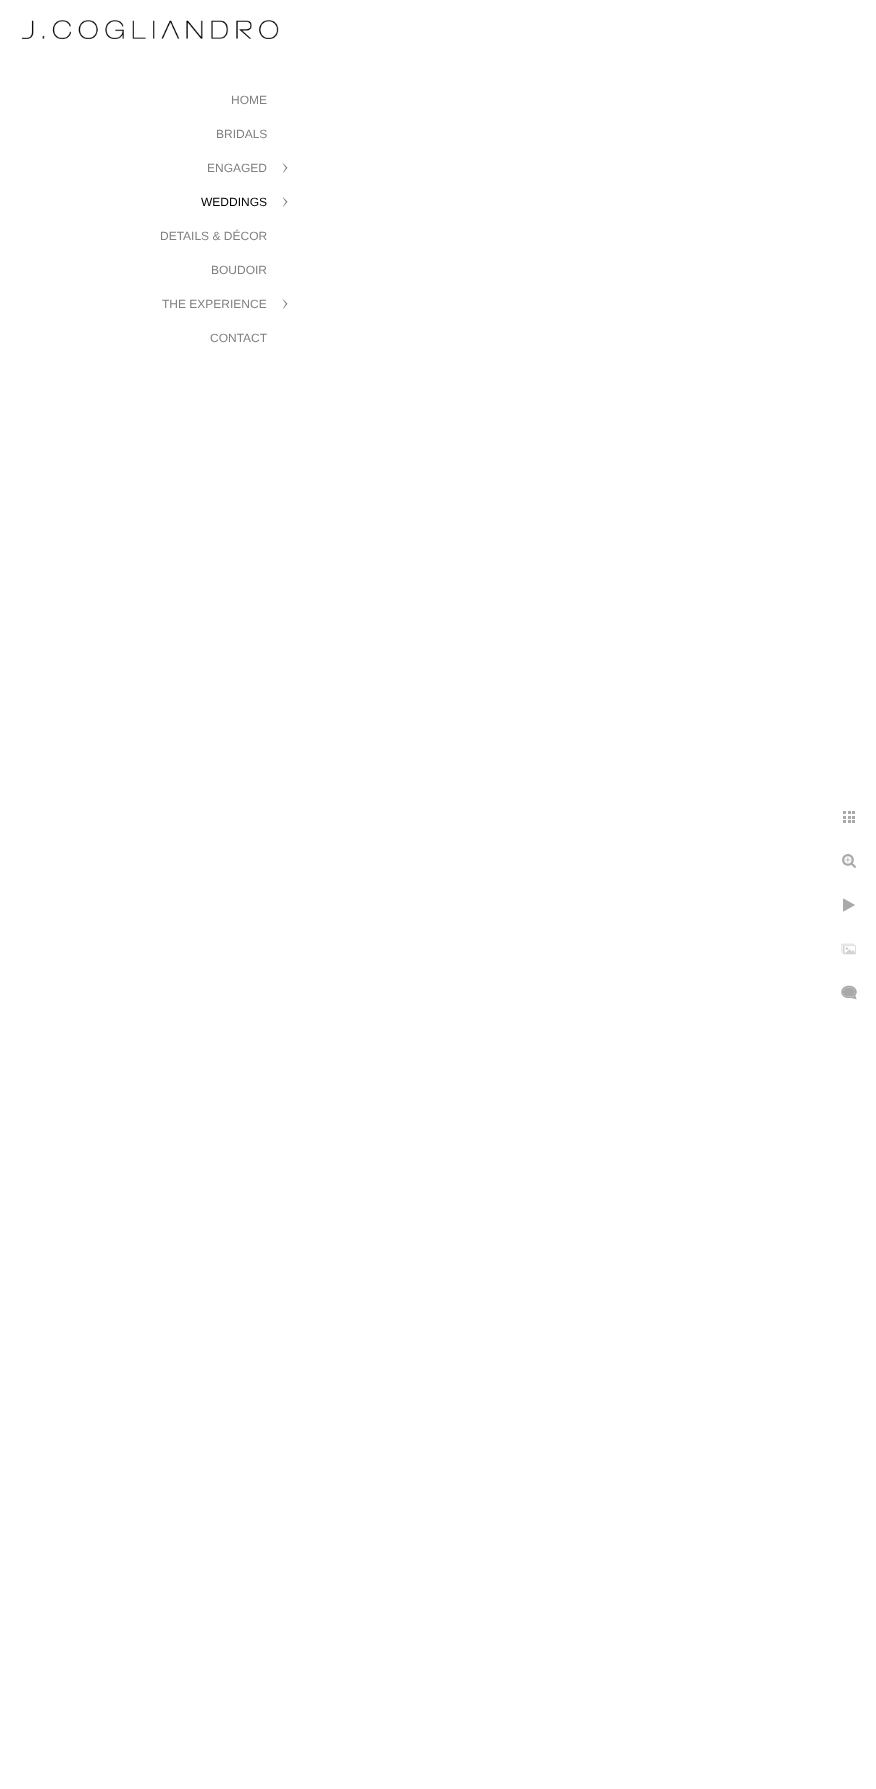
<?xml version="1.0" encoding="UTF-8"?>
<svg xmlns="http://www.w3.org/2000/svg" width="876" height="1789">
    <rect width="100%" height="100%" fill="#FFFFFF"/>
    <image x="21" y="20" width="258" height="19" href="img_01.png"/>
    <text x="231" y="104" font-family="Liberation Sans" font-size="12" fill="#808080">HOME</text>
    <text x="216" y="138" font-family="Liberation Sans" font-size="12" fill="#808080">BRIDALS</text>
    <text x="207" y="172" font-family="Liberation Sans" font-size="12" fill="#808080">ENGAGED</text>
    <image x="282" y="163" width="6" height="10" href="img_02.png"/>
    <text x="201" y="206" font-family="Liberation Sans" font-size="12" fill="#000000">WEDDINGS</text>
    <image x="282" y="197" width="6" height="10" href="img_02.png"/>
    <text x="160" y="240" font-family="Liberation Sans" font-size="12" fill="#808080">DETAILS &amp; DÉCOR</text>
    <text x="211" y="274" font-family="Liberation Sans" font-size="12" fill="#808080">BOUDOIR</text>
    <text x="162" y="308" font-family="Liberation Sans" font-size="12" fill="#808080">THE EXPERIENCE</text>
    <image x="282" y="299" width="6" height="10" href="img_02.png"/>
    <text x="210" y="342" font-family="Liberation Sans" font-size="12" fill="#808080">CONTACT</text>
    <image x="843" y="811" width="12" height="12" href="img_03.png"/>
    <image x="842" y="854" width="14" height="14" href="img_04.png"/>
    <image x="843" y="898" width="12" height="14" href="img_05.png"/>
    <image x="841" y="943" width="15" height="12" href="img_06.png"/>
    <image x="841" y="985" width="16" height="15" href="img_07.png"/>
</svg>
